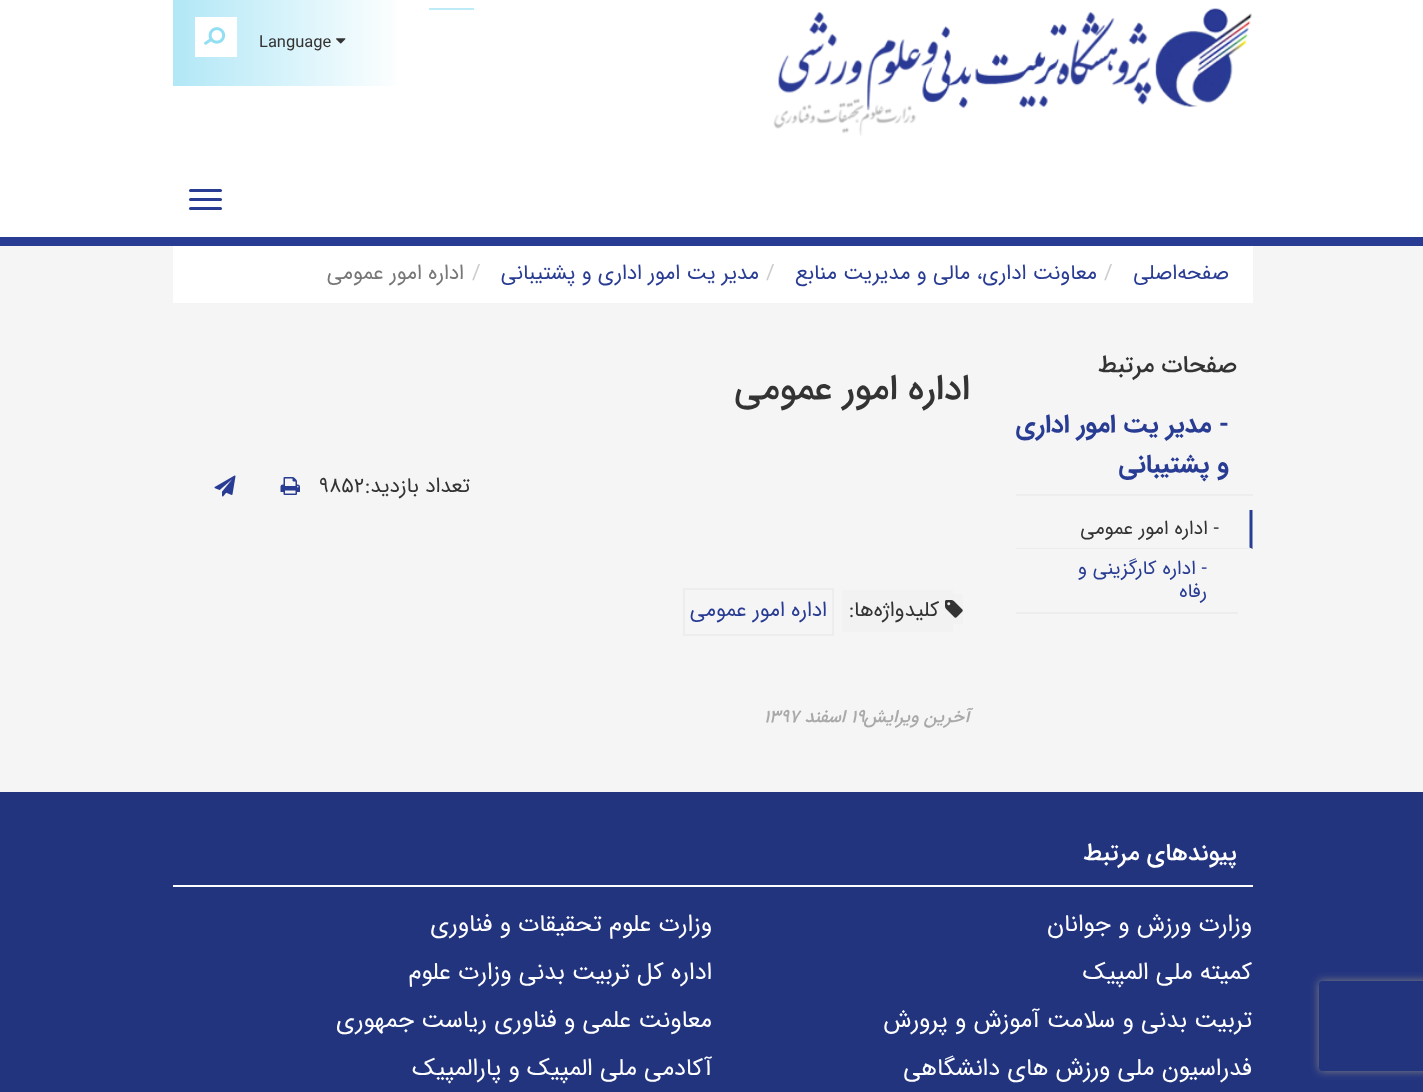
<?xml version="1.0" encoding="UTF-8"?>
<svg xmlns="http://www.w3.org/2000/svg" width="1423" height="1092">
    <defs>
        <linearGradient id="g1" gradientUnits="userSpaceOnUse" x1="83" y1="43" x2="429" y2="43"><stop offset="0" stop-color="#93DEF3"/><stop offset="0.93" stop-color="#FFFFFF"/></linearGradient>
        <clipPath id="clip1"><path d="M 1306 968 H 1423 V 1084 H 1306 Z M 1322 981 H 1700 C 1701.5 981 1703 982.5 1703 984 V 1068 C 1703 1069.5 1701.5 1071 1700 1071 H 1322 C 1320.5 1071 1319 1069.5 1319 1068 V 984 C 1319 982.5 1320.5 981 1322 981 Z" clip-rule="evenodd"/></clipPath>
        <filter id="blur1" x="-50%" y="-200%" width="200%" height="500%"><feGaussianBlur stdDeviation="4"/></filter>
    </defs>
    <rect width="100%" height="100%" fill="#F5F5F5"/>
    <rect x="0" y="0" width="1423" height="237" fill="#FFFFFF"/>
    <rect x="0" y="237" width="1423" height="9" fill="#293C93"/>
    <image x="773" y="8" width="479" height="128" href="img_01.png"/>
    <rect x="429" y="8" width="45" height="2" fill="#BEEBF8"/>
    <rect x="173" y="0" width="224" height="86" fill="url(#g1)"/>
    <image x="336" y="38" width="10" height="6" href="img_02.png"/>
    <text x="259" y="47" font-family="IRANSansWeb" font-size="16.5" fill="#333333">Language</text>
    <rect x="195" y="17" width="42" height="40" fill="#FFFFFF"/>
    <image x="204" y="27" width="22" height="18" href="img_03.png"/>
    <rect x="189" y="189" width="33" height="3" rx="1.5" fill="#293C93"/>
    <rect x="189" y="198" width="33" height="3" rx="1.5" fill="#293C93"/>
    <rect x="189" y="207" width="33" height="3" rx="1.5" fill="#293C93"/>
    <rect x="173" y="246" width="1080" height="57" fill="#FFFFFF"/>
    <text x="1229" y="279" font-family="IRANSansWeb" font-size="21" direction="rtl" fill="#293C93">صفحه‌اصلی</text>
    <text x="1104" y="279" font-family="IRANSansWeb" font-size="21" fill="#CCCCCC">/</text>
    <text x="1097" y="279" font-family="IRANSansWeb" font-size="21" direction="rtl" fill="#293C93">معاونت اداری، مالی و مدیریت منابع</text>
    <text x="766" y="279" font-family="IRANSansWeb" font-size="21" fill="#CCCCCC">/</text>
    <text x="759" y="279" font-family="IRANSansWeb" font-size="21" direction="rtl" fill="#293C93">مدیر یت امور اداری و پشتیبانی</text>
    <text x="472" y="279" font-family="IRANSansWeb" font-size="21" fill="#CCCCCC">/</text>
    <text x="464" y="279" font-family="IRANSansWeb" font-size="21" direction="rtl" fill="#777777">اداره امور عمومی</text>
    <text x="1237" y="372" font-family="IRANSansWeb" font-size="24" font-weight="500" direction="rtl" fill="#333333">صفحات مرتبط</text>
    <rect x="1016" y="494" width="237" height="2" fill="#EDEDED"/>
    <text font-family="IRANSansWeb" font-size="25.5" font-weight="700" direction="rtl" fill="#293C93">
        <tspan x="1229" y="432">- مدیر یت امور اداری</tspan>
        <tspan x="1229" y="472">و پشتیبانی</tspan>
    </text>
    <path d="M 1252.5 510 V 549 L 1249.5 547.5 V 510 Z" fill="#293C93"/>
    <path d="M 1252 549 H 1016 V 548 H 1250 Z" fill="#EDEDED"/>
    <text x="1219" y="534" font-family="IRANSansWeb" font-size="19.5" direction="rtl" fill="#333333">- اداره امور عمومی</text>
    <rect x="1016" y="612" width="222" height="2" fill="#EDEDED"/>
    <text font-family="IRANSansWeb" font-size="19.5" direction="rtl" fill="#293C93">
        <tspan x="1207" y="574">- اداره کارگزینی و</tspan>
        <tspan x="1207" y="597">رفاه</tspan>
    </text>
    <text x="970" y="399" font-family="IRANSansWeb" font-size="36" font-weight="500" direction="rtl" fill="#333333">اداره امور عمومی</text>
    <text x="470" y="492" font-family="IRANSansWeb" font-size="21" direction="rtl" fill="#333333">تعداد بازدید:</text>
    <text x="319" y="492" font-family="IRANSansWeb" font-size="21" fill="#333333">۹۸۵۲</text>
    <image x="280" y="477" width="20" height="18" href="img_04.png"/>
    <image x="214" y="475" width="22" height="22" href="img_05.png"/>
    <rect x="953" y="594" width="10" height="30" fill="#F2F2F2"/>
    <rect x="842" y="590" width="111" height="42" fill="#F2F2F2"/>
    <image x="945" y="600" width="18" height="18" href="img_06.png"/>
    <text x="939" y="616" font-family="IRANSansWeb" font-size="21" direction="rtl" fill="#333333">کلیدواژه‌ها:</text>
    <rect x="684" y="589" width="149" height="46" fill="none" stroke="#EDEDED" stroke-width="2"/>
    <text x="827" y="616" font-family="IRANSansWeb" font-size="21" direction="rtl" fill="#293C93">اداره امور عمومی</text>
    <text x="851" y="722" font-family="IRANSansWeb" font-size="18" font-weight="500" font-style="italic" fill="#A9A9A9">۱۹</text>
    <text x="970" y="722" font-family="IRANSansWeb" font-size="18" font-weight="500" font-style="italic" direction="rtl" fill="#A9A9A9">آخرین ویرایش</text>
    <text x="845" y="722" font-family="IRANSansWeb" font-size="18" font-weight="500" font-style="italic" direction="rtl" fill="#A9A9A9">اسفند</text>
    <text x="764" y="722" font-family="IRANSansWeb" font-size="18" font-weight="500" font-style="italic" fill="#A9A9A9">۱۳۹۷</text>
    <rect x="0" y="792" width="1423" height="300" fill="#23347F"/>
    <g clip-path="url(#clip1)">
        <rect x="1319" y="981" width="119" height="90" rx="3" fill="#808080" filter="url(#blur1)"/>
    </g>
    <rect x="173" y="885" width="1080" height="2" fill="#FFFFFF"/>
    <text x="1237" y="860" font-family="IRANSansWeb" font-size="24" font-weight="500" direction="rtl" fill="#FFFFFF">پیوندهای مرتبط</text>
    <text x="1252" y="931" font-family="IRANSansWeb" font-size="24" direction="rtl" fill="#FFFFFF">وزارت ورزش و جوانان</text>
    <text x="712" y="931" font-family="IRANSansWeb" font-size="24" direction="rtl" fill="#FFFFFF">وزارت علوم تحقیقات و فناوری</text>
    <text x="1252" y="979" font-family="IRANSansWeb" font-size="24" direction="rtl" fill="#FFFFFF">کمیته ملی المپیک</text>
    <text x="712" y="979" font-family="IRANSansWeb" font-size="24" direction="rtl" fill="#FFFFFF">اداره کل تربیت بدنی وزارت علوم</text>
    <text x="1252" y="1027" font-family="IRANSansWeb" font-size="24" direction="rtl" fill="#FFFFFF">تربیت بدنی و سلامت آموزش و پرورش</text>
    <text x="712" y="1027" font-family="IRANSansWeb" font-size="24" direction="rtl" fill="#FFFFFF">معاونت علمی و فناوری ریاست جمهوری</text>
    <text x="1252" y="1075" font-family="IRANSansWeb" font-size="24" direction="rtl" fill="#FFFFFF">فدراسیون ملی ورزش های دانشگاهی</text>
    <text x="712" y="1075" font-family="IRANSansWeb" font-size="24" direction="rtl" fill="#FFFFFF">آکادمی ملی المپیک و پارالمپیک</text>
</svg>
